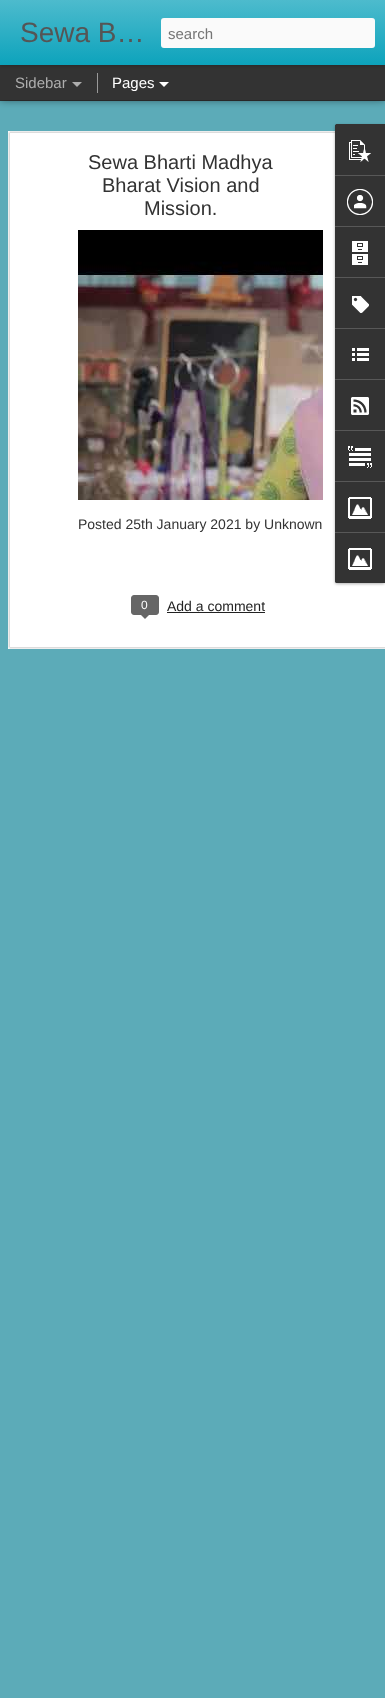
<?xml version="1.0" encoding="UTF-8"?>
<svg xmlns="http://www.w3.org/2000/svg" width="385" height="1698">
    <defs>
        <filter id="blur1" x="-50%" y="-200%" width="200%" height="500%"><feGaussianBlur stdDeviation="4"/></filter>
        <filter id="blur2" x="-50%" y="-200%" width="200%" height="500%"><feGaussianBlur stdDeviation="2.5"/></filter>
        <linearGradient id="g1" gradientUnits="userSpaceOnUse" x1="0" y1="0" x2="0" y2="65"><stop offset="0" stop-color="#4DBBCD"/><stop offset="1" stop-color="#0DA3BC"/></linearGradient>
        <filter id="blur3" x="-50%" y="-200%" width="200%" height="500%"><feGaussianBlur stdDeviation="1.5"/></filter>
    </defs>
    <rect width="100%" height="100%" fill="#333333"/>
    <rect x="0" y="101" width="385" height="1597" fill="#5CABB8"/>
    <rect x="0" y="65" width="385" height="35" fill="#000000" fill-opacity="0.5" filter="url(#blur1)"/>
    <rect x="0" y="65" width="385" height="35" fill="#333333"/>
    <rect x="97" y="73" width="1" height="20" fill="#999999"/>
    <rect x="0" y="0" width="385" height="65" fill="#000000" fill-opacity="0.3" filter="url(#blur2)"/>
    <rect x="0" y="0" width="385" height="65" fill="url(#g1)"/>
    <text x="20" y="42" font-family="Liberation Sans" font-size="28" fill="#555555">Sewa B…</text>
    <rect x="161" y="18" width="214" height="30" rx="3" fill="#FAFAFA"/>
    <text x="168" y="39" font-family="Liberation Sans" font-size="15" fill="#757575">search</text>
    <text x="15" y="88" font-family="Liberation Sans" font-size="15" fill="#ADADAD">Sidebar</text>
    <path d="M 72 82 H 82 L 77 87 Z" fill="#ADADAD"/>
    <text x="112" y="88" font-family="Liberation Sans" font-size="15" fill="#FFFFFF">Pages</text>
    <path d="M 159 82 H 169 L 164 87 Z" fill="#FFFFFF"/>
    <rect x="8" y="131" width="377" height="518" fill="#FFFFFF"/>
    <image x="8" y="131" width="377" height="518" href="img_01.png"/>
    <text x="88" y="169" font-family="Liberation Sans" font-size="20" fill="#333333">Sewa Bharti Madhya</text>
    <text x="102" y="192" font-family="Liberation Sans" font-size="20" fill="#333333">Bharat Vision and</text>
    <text x="144" y="215" font-family="Liberation Sans" font-size="20" fill="#333333">Mission.</text>
    <image x="78" y="230" width="245" height="270" href="img_02.png"/>
    <text x="78" y="529" font-family="Liberation Sans" font-size="14" fill="#333333">Posted 25th January 2021 by Unknown</text>
    <rect x="131.5" y="595.5" width="27" height="19" rx="2.5" fill="#666666" stroke="#666666"/>
    <text x="141" y="609" font-family="Liberation Sans" font-size="12" fill="#FFFFFF">0</text>
    <path d="M 140 614 H 150 L 145 619 Z" fill="#666666"/>
    <text x="167" y="611" font-family="Liberation Sans" font-size="14" fill="#222222">Add a comment</text>
    <rect x="167" y="612" width="98" height="1" fill="#222222"/>
    <rect x="335" y="125" width="50" height="459" rx="2" fill="#000000" fill-opacity="0.3" filter="url(#blur3)"/>
    <path d="M 337 124 H 385 V 583 H 337 C 336 583 335 582 335 581 V 126 C 335 125 336 124 337 124 Z" fill="#333333"/>
    <path d="M 337 124 H 385 V 175 H 335 V 126 C 335 125 336 124 337 124 Z" fill="#333333"/>
    <image x="349" y="140" width="22" height="22" href="img_03.png"/>
    <rect x="335" y="175" width="50" height="1" fill="#585858"/>
    <image x="347" y="189" width="26" height="26" href="img_04.png"/>
    <rect x="335" y="226" width="50" height="1" fill="#585858"/>
    <image x="352" y="241" width="16" height="24" href="img_05.png"/>
    <rect x="335" y="277" width="50" height="1" fill="#585858"/>
    <image x="352" y="296" width="17" height="17" href="img_06.png"/>
    <rect x="335" y="328" width="50" height="1" fill="#585858"/>
    <image x="352" y="348" width="17" height="13" href="img_07.png"/>
    <rect x="335" y="379" width="50" height="1" fill="#585858"/>
    <image x="351" y="397" width="18" height="18" href="img_08.png"/>
    <rect x="335" y="430" width="50" height="1" fill="#585858"/>
    <image x="348" y="446" width="24" height="22" href="img_09.png"/>
    <rect x="335" y="481" width="50" height="1" fill="#585858"/>
    <image x="348" y="497" width="24" height="22" href="img_10.png"/>
    <path d="M 335 532 H 385 V 583 H 337 C 336 583 335 582 335 581 Z" fill="#333333"/>
    <rect x="335" y="532" width="50" height="1" fill="#585858"/>
    <image x="348" y="548" width="24" height="22" href="img_10.png"/>
</svg>
